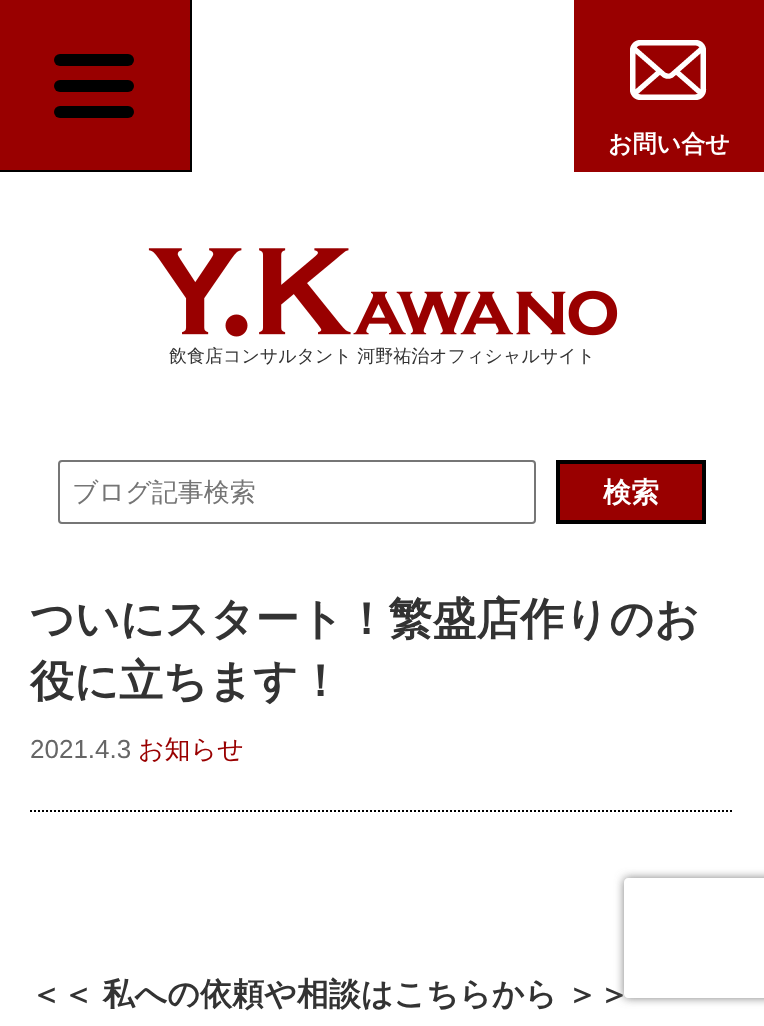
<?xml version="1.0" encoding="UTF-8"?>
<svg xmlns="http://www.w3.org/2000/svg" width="764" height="1026">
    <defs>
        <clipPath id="clip1"><path d="M 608 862 H 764 V 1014 H 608 Z M 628 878 H 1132 C 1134 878 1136 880 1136 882 V 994 C 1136 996 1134 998 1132 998 H 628 C 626 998 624 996 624 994 V 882 C 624 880 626 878 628 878 Z" clip-rule="evenodd"/></clipPath>
        <filter id="blur1" x="-50%" y="-200%" width="200%" height="500%"><feGaussianBlur stdDeviation="5"/></filter>
    </defs>
    <rect width="100%" height="100%" fill="#FFFFFF"/>
    <rect x="0" y="0" width="190" height="170" fill="#990000"/>
    <rect x="190" y="0" width="2" height="172" fill="#000000"/>
    <rect x="0" y="170" width="192" height="2" fill="#000000"/>
    <rect x="54" y="54" width="80" height="12" rx="6" fill="#000000"/>
    <rect x="54" y="80" width="80" height="12" rx="6" fill="#000000"/>
    <rect x="54" y="106" width="80" height="12" rx="6" fill="#000000"/>
    <rect x="574" y="0" width="190" height="172" fill="#990000"/>
    <image x="630" y="40" width="77" height="60" href="img_01.png"/>
    <text x="608" y="152" font-family="WenQuanYi Zen Hei" font-size="24" font-weight="700" fill="#FFFFFF">お問い合せ</text>
    <image x="148" y="248" width="470" height="89" href="img_02.png"/>
    <text x="169" y="362" font-family="WenQuanYi Zen Hei" font-size="18" font-weight="500" fill="#333333">飲食店コンサルタント 河野祐治オフィシャルサイト</text>
    <rect x="59" y="461" width="476" height="62" rx="3" fill="none" stroke="#767676" stroke-width="2"/>
    <text x="72" y="501" font-family="WenQuanYi Zen Hei" font-size="26" font-weight="500" fill="#757575">ブログ記事検索</text>
    <rect x="558" y="462" width="146" height="60" fill="#990000" stroke="#000000" stroke-width="4"/>
    <text x="603" y="502" font-family="WenQuanYi Zen Hei" font-size="28" font-weight="700" fill="#FFFFFF">検索</text>
    <text font-family="WenQuanYi Zen Hei" font-size="44" font-weight="700" fill="#333333">
        <tspan x="30" y="634">ついにスタート！繁盛店作りのお</tspan>
        <tspan x="30" y="696">役に立ちます！</tspan>
    </text>
    <path d="M 30 811 H 734" fill="none" stroke="#000000" stroke-width="2" stroke-dasharray="2 2"/>
    <text x="30" y="758" font-family="Liberation Sans" font-size="26" fill="#666666">2021.4.3</text>
    <text x="138" y="758" font-family="WenQuanYi Zen Hei" font-size="26" font-weight="500" fill="#990000">お知らせ</text>
    <text x="30" y="1005" word-spacing="-1" font-family="WenQuanYi Zen Hei" font-size="32" font-weight="700" fill="#333333">＜＜ 私への依頼や相談はこちらから ＞＞</text>
    <g clip-path="url(#clip1)">
        <rect x="624" y="878" width="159" height="120" rx="4" fill="#808080" filter="url(#blur1)"/>
    </g>
</svg>
